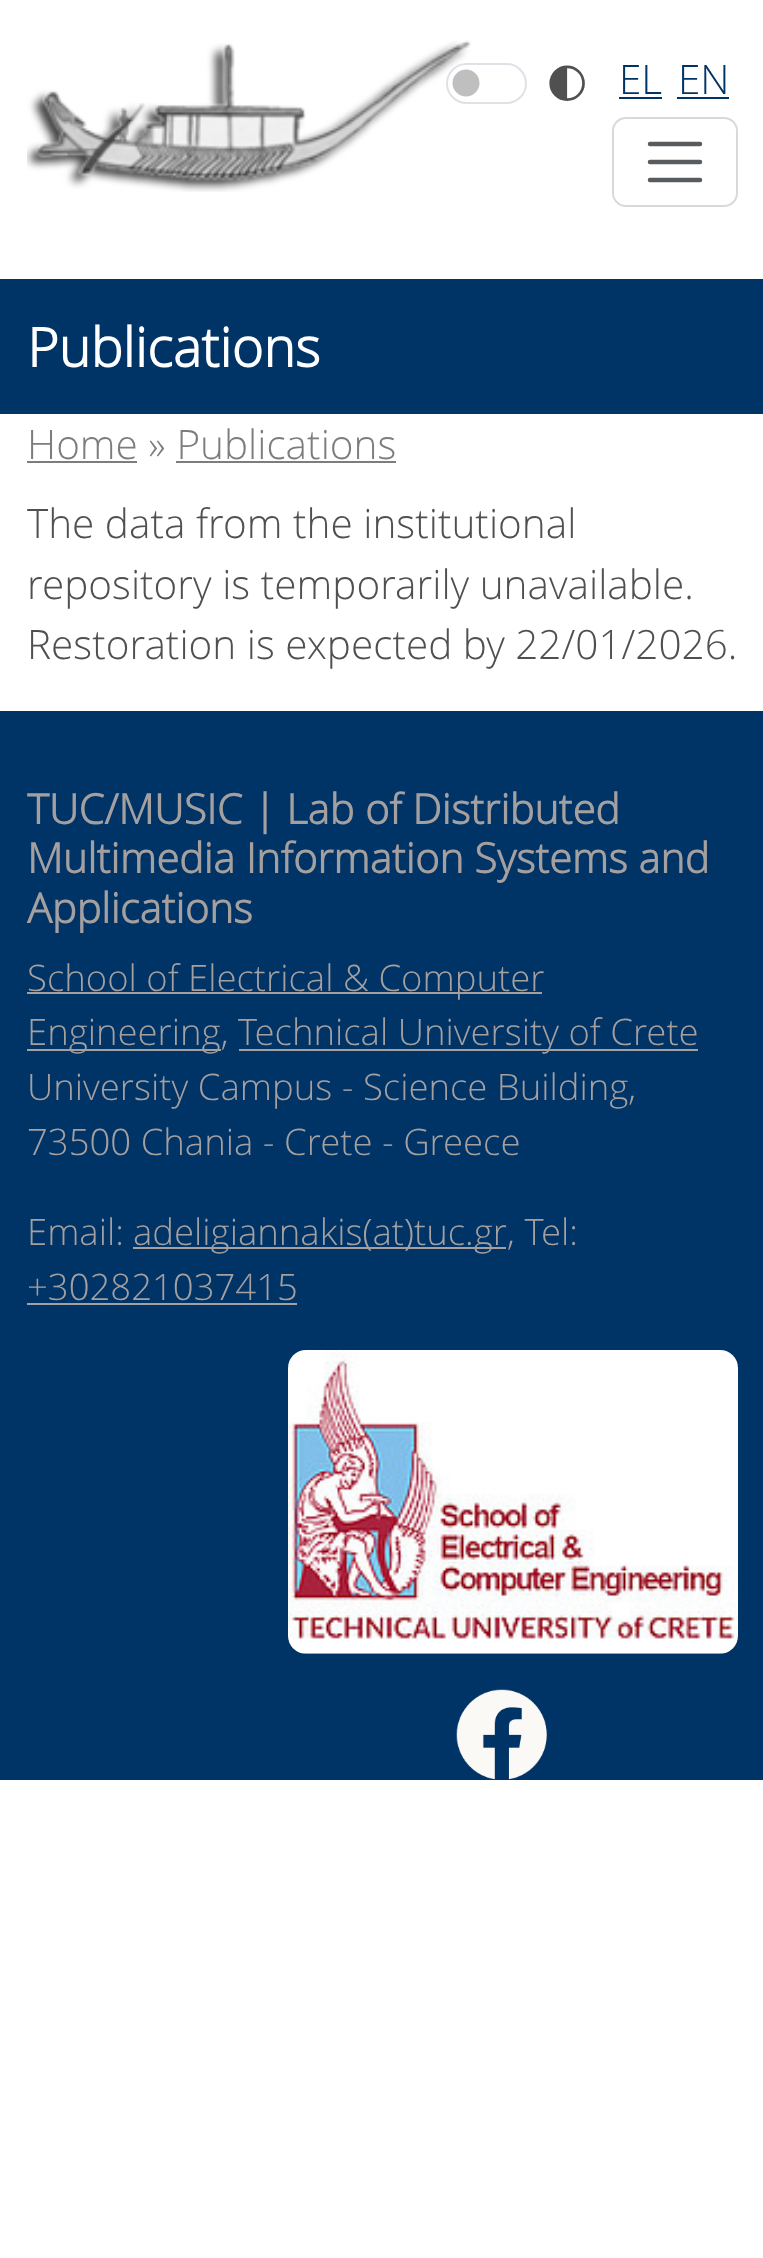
<?xml version="1.0" encoding="UTF-8"?>
<svg xmlns="http://www.w3.org/2000/svg" width="763" height="2258">
    <rect width="100%" height="100%" fill="#FFFFFF"/>
    <image x="27" y="40" width="444" height="152" href="img_01.png"/>
    <circle cx="466" cy="83" r="13.5" fill="#BFBFBF"/>
    <rect x="447" y="64" width="79" height="39" rx="19.5" fill="none" stroke="#DEE2E6" stroke-width="2"/>
    <text x="546" y="98" font-family="DejaVu Sans" font-size="40.5" fill="#505050">🌓︎</text>
    <text x="619" y="94" font-family="Open Sans" font-size="40.5" font-weight="300" fill="#003366">EL</text>
    <rect x="619" y="97" width="43" height="2" fill="#003366"/>
    <text x="678" y="94" font-family="Open Sans" font-size="40.5" font-weight="300" fill="#003366">EN</text>
    <rect x="677" y="97" width="52" height="2" fill="#003366"/>
    <rect x="613" y="118" width="124" height="88" rx="13" fill="none" stroke="#D9D9D9" stroke-width="2"/>
    <path d="M 650 144 H 700 M 650 162 H 700 M 650 180 H 700" fill="none" stroke="#595C5F" stroke-width="4.5" stroke-linecap="round"/>
    <rect x="0" y="279" width="763" height="135" fill="#003366"/>
    <text x="27" y="367" font-family="Open Sans" font-size="54" font-weight="700" fill="#FFFFFF">Publications</text>
    <text x="27" y="459" font-family="Open Sans" font-size="40.5" font-weight="300" fill="#7D7D7D">Home » Publications</text>
    <rect x="27" y="461" width="110" height="2" fill="#7D7D7D"/>
    <rect x="176" y="461" width="220" height="2" fill="#7D7D7D"/>
    <text font-family="Open Sans" font-size="40.5" font-weight="300" fill="#505050">
        <tspan x="27" y="538">The data from the institutional</tspan>
        <tspan x="27" y="599">repository is temporarily unavailable.</tspan>
        <tspan x="27" y="659">Restoration is expected by 22/01/2026.</tspan>
    </text>
    <rect x="0" y="711" width="763" height="1069" fill="#003366"/>
    <text font-family="Open Sans" font-size="41.4" font-weight="700" fill="#A5A0A0">
        <tspan x="27" y="824">TUC/MUSIC | Lab of Distributed</tspan>
        <tspan x="27" y="873">Multimedia Information Systems and</tspan>
        <tspan x="27" y="923">Applications</tspan>
    </text>
    <rect x="27" y="992" width="515" height="2" fill="#A5A0A0"/>
    <text x="27" y="991" font-family="Open Sans" font-size="36.5" font-weight="300" fill="#A5A0A0">School of Electrical &amp; Computer</text>
    <rect x="27" y="1049" width="194" height="2" fill="#A5A0A0"/>
    <text x="27" y="1045" font-family="Open Sans" font-size="36.5" font-weight="300" fill="#A5A0A0">Engineering,</text>
    <rect x="239" y="1049" width="459" height="2" fill="#A5A0A0"/>
    <text x="238" y="1045" font-family="Open Sans" font-size="36.5" font-weight="300" fill="#A5A0A0">Technical University of Crete</text>
    <text font-family="Open Sans" font-size="36.5" font-weight="300" fill="#A5A0A0">
        <tspan x="27" y="1100">University Campus - Science Building,</tspan>
        <tspan x="27" y="1155">73500 Chania - Crete - Greece</tspan>
    </text>
    <text x="27" y="1245" font-family="Open Sans" font-size="36.5" font-weight="300" fill="#A5A0A0">Email:</text>
    <rect x="133" y="1247" width="373" height="2" fill="#A5A0A0"/>
    <text x="133" y="1245" font-family="Open Sans" font-size="36.5" font-weight="300" fill="#A5A0A0">adeligiannakis(at)tuc.gr, Tel:</text>
    <text x="27" y="1300" font-family="Open Sans" font-size="36.5" font-weight="300" fill="#A5A0A0">+302821037415</text>
    <rect x="27" y="1303" width="270" height="2" fill="#A5A0A0"/>
    <image x="288" y="1350" width="450" height="304" href="img_02.png"/>
    <image x="456" y="1689" width="91" height="91" href="img_03.png"/>
</svg>
